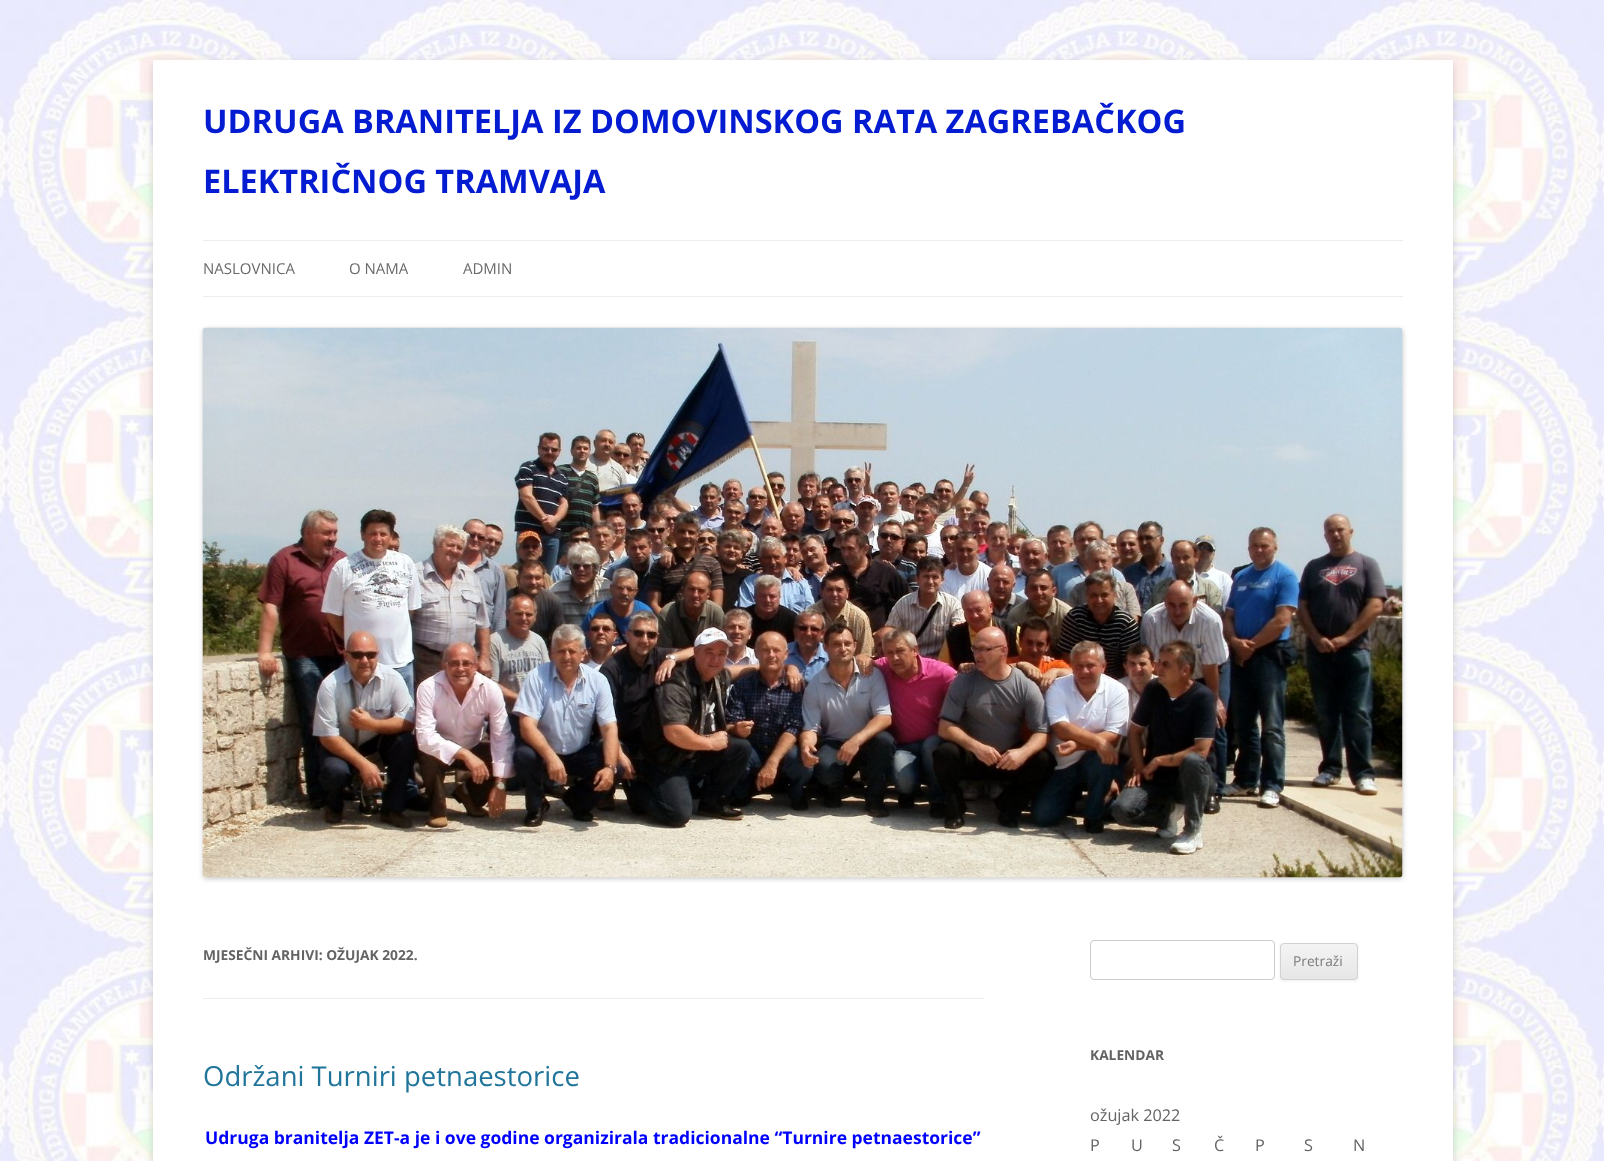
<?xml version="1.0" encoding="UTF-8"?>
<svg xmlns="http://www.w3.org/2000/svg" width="1604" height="1161">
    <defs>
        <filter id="blur1" x="-50%" y="-200%" width="200%" height="500%"><feGaussianBlur stdDeviation="4"/></filter>
        <filter id="blur2" x="-50%" y="-200%" width="200%" height="500%"><feGaussianBlur stdDeviation="2.5"/></filter>
        <filter id="blur3" x="-50%" y="-200%" width="200%" height="500%"><feGaussianBlur stdDeviation="1"/></filter>
        <clipPath id="clip1"><rect x="1280" y="943" width="78" height="37" rx="4"/></clipPath>
        <linearGradient id="g1" gradientUnits="userSpaceOnUse" x1="1319" y1="944" x2="1319" y2="979"><stop offset="0" stop-color="#F4F4F4"/><stop offset="1" stop-color="#E6E6E6"/></linearGradient>
    </defs>
    <rect width="100%" height="100%" fill="#FFFFFF"/>
    <image x="0" y="0" width="1604" height="1161" href="img_01.png"/>
    <rect x="153" y="63" width="1300" height="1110" fill="#646464" fill-opacity="0.3" filter="url(#blur1)"/>
    <rect x="153" y="60" width="1300" height="1101" fill="#FFFFFF"/>
    <text font-family="Open Sans" font-size="32.5" font-weight="700" fill="#041CD1">
        <tspan x="203" y="133">UDRUGA BRANITELJA IZ DOMOVINSKOG RATA ZAGREBAČKOG</tspan>
        <tspan x="203" y="193">ELEKTRIČNOG TRAMVAJA</tspan>
    </text>
    <rect x="203" y="240" width="1200" height="1" fill="#EDEDED"/>
    <rect x="203" y="296" width="1200" height="1" fill="#EDEDED"/>
    <text x="203" y="274" font-family="Open Sans" font-size="15" fill="#6A6A6A">NASLOVNICA</text>
    <text x="349" y="274" font-family="Open Sans" font-size="15" fill="#6A6A6A">O NAMA</text>
    <text x="463" y="274" font-family="Open Sans" font-size="15" fill="#6A6A6A">ADMIN</text>
    <rect x="203" y="329" width="1200" height="550" rx="4" fill="#000000" fill-opacity="0.2" filter="url(#blur2)"/>
    <image x="202" y="327" width="1201" height="551" href="img_02.png"/>
    <rect x="203" y="998" width="781" height="1" fill="#EDEDED"/>
    <text x="203" y="960" font-family="Open Sans" font-size="13.75" font-weight="700" fill="#636363">MJESEČNI ARHIVI: OŽUJAK 2022.</text>
    <text x="203" y="1086" font-family="Open Sans" font-size="27.5" fill="#21759B">Održani Turniri petnaestorice</text>
    <text x="205" y="1144" font-family="Open Sans" font-size="17.5" font-weight="700" fill="#0000FF">Udruga branitelja ZET-a je i ove godine organizirala tradicionalne “Turnire petnaestorice”</text>
    <rect x="1090.5" y="940.5" width="184" height="39" rx="3.5" fill="none" stroke="#CCCCCC"/>
    <rect x="1280" y="944" width="78" height="37" rx="4" fill="#404040" fill-opacity="0.1" filter="url(#blur3)"/>
    <g clip-path="url(#clip1)">
        <rect x="1280" y="944" width="78" height="35" fill="url(#g1)"/>
    </g>
    <rect x="1280.5" y="943.5" width="77" height="36" rx="3.5" fill="none" stroke="#D2D2D2"/>
    <text x="1293" y="966" font-family="Open Sans" font-size="13.75" fill="#7C7C7C">Pretraži</text>
    <text x="1090" y="1060" font-family="Open Sans" font-size="13.75" font-weight="700" fill="#636363">KALENDAR</text>
    <text font-family="Open Sans" font-size="16.25" fill="#636363">
        <tspan x="1090" y="1121">ožujak 2022</tspan>
        <tspan x="1090" y="1151">P</tspan>
    </text>
    <text x="1131" y="1151" font-family="Open Sans" font-size="16.25" fill="#636363">U</text>
    <text x="1172" y="1151" font-family="Open Sans" font-size="16.25" fill="#636363">S</text>
    <text x="1214" y="1151" font-family="Open Sans" font-size="16.25" fill="#636363">Č</text>
    <text x="1255" y="1151" font-family="Open Sans" font-size="16.25" fill="#636363">P</text>
    <text x="1304" y="1151" font-family="Open Sans" font-size="16.25" fill="#636363">S</text>
    <text x="1353" y="1151" font-family="Open Sans" font-size="16.25" fill="#636363">N</text>
</svg>
